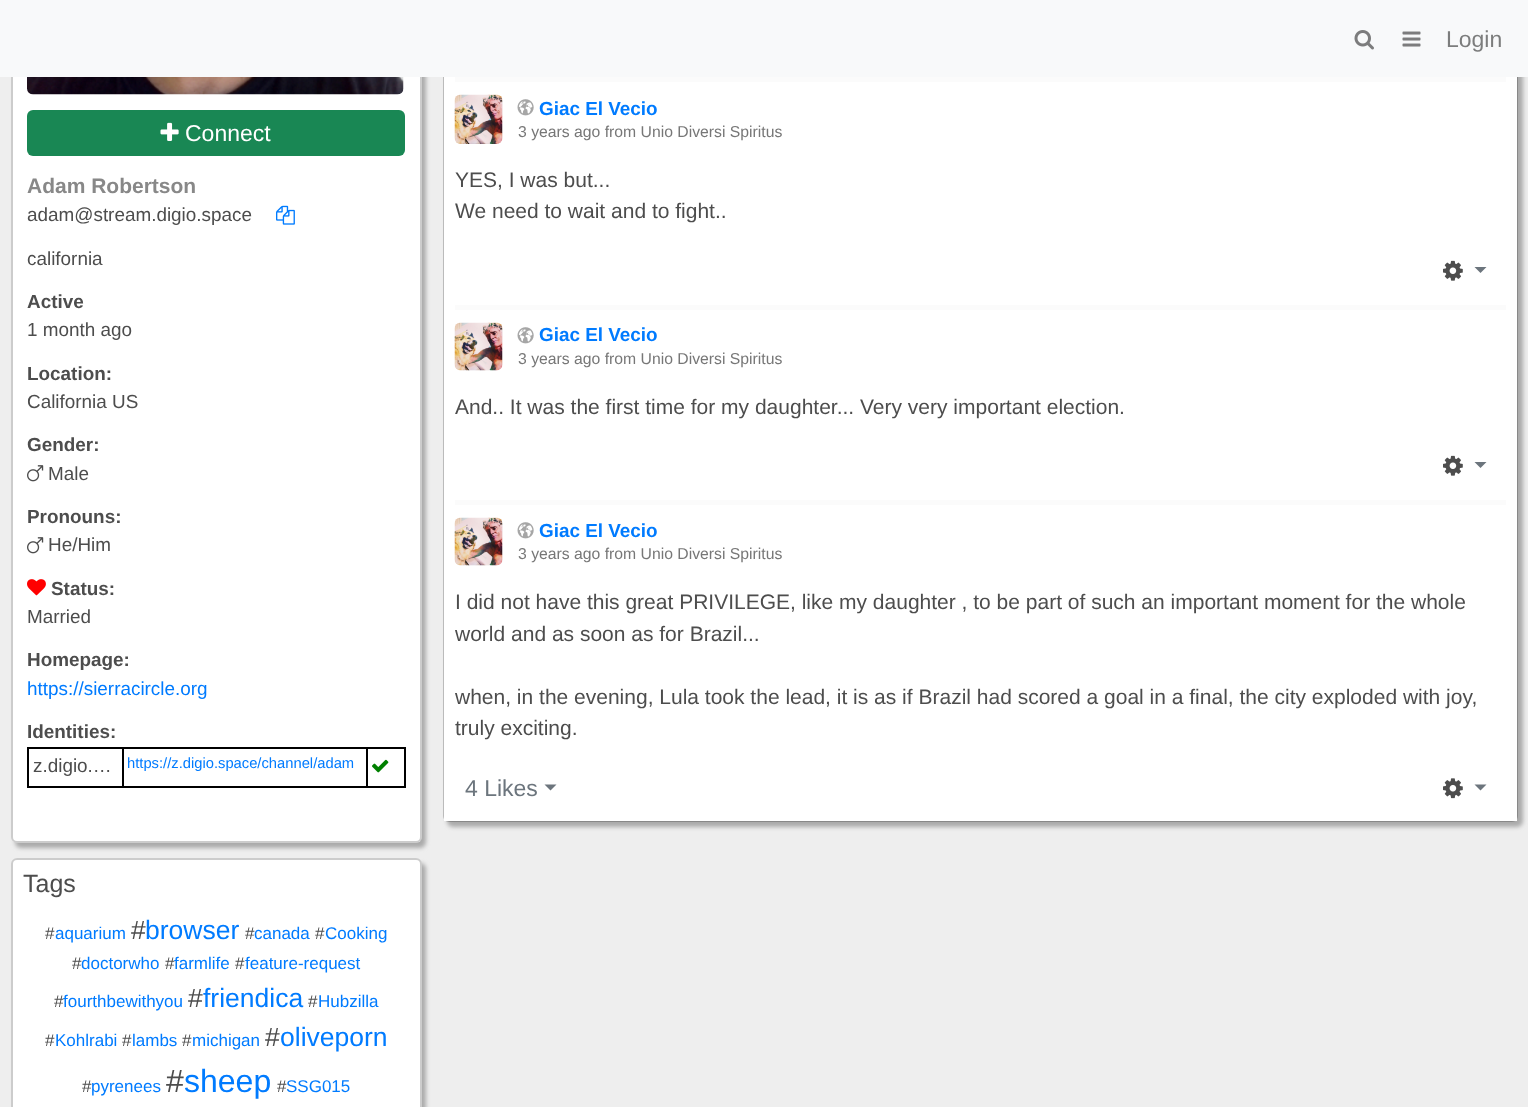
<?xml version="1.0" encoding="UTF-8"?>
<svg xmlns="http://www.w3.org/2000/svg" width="1528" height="1107">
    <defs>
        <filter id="blur1" x="-50%" y="-200%" width="200%" height="500%"><feGaussianBlur stdDeviation="2"/></filter>
    </defs>
    <rect width="100%" height="100%" fill="#EEEEEE"/>
    <rect x="15" y="-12" width="411" height="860" rx="6" fill="#AAAAAA" filter="url(#blur1)"/>
    <rect x="11" y="-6" width="411" height="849" rx="6" fill="#FFFFFF"/>
    <rect x="12" y="-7" width="409" height="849" rx="5" fill="none" stroke="#000000" stroke-opacity="0.2" stroke-width="2"/>
    <rect x="447" y="-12" width="1076" height="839" rx="6" fill="#AAAAAA" filter="url(#blur1)"/>
    <rect x="444" y="-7" width="1073" height="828" rx="5" fill="none" stroke="#000000" stroke-opacity="0.2" stroke-width="2"/>
    <rect x="0" y="0" width="1528" height="77" fill="#F8F9FA"/>
    <image x="1354" y="30" width="20" height="20" href="img_01.png"/>
    <image x="1402" y="31" width="19" height="16" href="img_02.png"/>
    <text x="1446" y="47" font-family="Liberation Sans" font-size="23" fill="#7C7D7D">Login</text>
    <image x="27" y="77" width="377" height="18" href="img_03.png"/>
    <rect x="27" y="110" width="378" height="46" rx="6" fill="#198754"/>
    <image x="160" y="122" width="19" height="19" href="img_04.png"/>
    <text x="185" y="141" font-family="Liberation Sans" font-size="23" fill="#FFFFFF">Connect</text>
    <text x="27" y="193" font-family="Liberation Sans" font-size="21" font-weight="700" fill="#888888">Adam Robertson</text>
    <text x="27" y="221" font-family="Liberation Sans" font-size="18.9" fill="#4D4D4D">adam@stream.digio.space</text>
    <image x="276" y="205" width="19" height="20" href="img_05.png"/>
    <text x="27" y="265" font-family="Liberation Sans" font-size="18.9" fill="#4D4D4D">california</text>
    <text x="27" y="308" font-family="Liberation Sans" font-size="18.9" font-weight="700" fill="#4D4D4D">Active</text>
    <text x="27" y="336" font-family="Liberation Sans" font-size="18.9" fill="#4D4D4D">1 month ago</text>
    <text x="27" y="380" font-family="Liberation Sans" font-size="18.9" font-weight="700" fill="#4D4D4D">Location:</text>
    <text x="27" y="408" font-family="Liberation Sans" font-size="18.9" fill="#4D4D4D">California US</text>
    <text x="27" y="451" font-family="Liberation Sans" font-size="18.9" font-weight="700" fill="#4D4D4D">Gender:</text>
    <image x="27" y="465" width="17" height="17" href="img_06.png"/>
    <text x="48" y="480" font-family="Liberation Sans" font-size="18.9" fill="#4D4D4D">Male</text>
    <text x="27" y="523" font-family="Liberation Sans" font-size="18.9" font-weight="700" fill="#4D4D4D">Pronouns:</text>
    <image x="27" y="537" width="17" height="17" href="img_06.png"/>
    <text x="48" y="551" font-family="Liberation Sans" font-size="18.9" fill="#4D4D4D">He/Him</text>
    <image x="27" y="579" width="19" height="17" href="img_07.png"/>
    <text x="51" y="595" font-family="Liberation Sans" font-size="18.9" font-weight="700" fill="#4D4D4D">Status:</text>
    <text x="27" y="623" font-family="Liberation Sans" font-size="18.9" fill="#4D4D4D">Married</text>
    <text x="27" y="666" font-family="Liberation Sans" font-size="18.9" font-weight="700" fill="#4D4D4D">Homepage:</text>
    <text x="27" y="695" font-family="Liberation Sans" font-size="18.9" fill="#007BFF">https://sierracircle.org</text>
    <text x="27" y="738" font-family="Liberation Sans" font-size="18.9" font-weight="700" fill="#4D4D4D">Identities:</text>
    <rect x="366" y="747" width="39" height="2" fill="#000000"/>
    <rect x="404" y="747" width="2" height="41" fill="#000000"/>
    <rect x="366" y="786" width="39" height="2" fill="#000000"/>
    <rect x="366" y="747" width="2" height="41" fill="#000000"/>
    <rect x="122" y="747" width="246" height="2" fill="#000000"/>
    <rect x="122" y="786" width="246" height="2" fill="#000000"/>
    <rect x="122" y="747" width="2" height="41" fill="#000000"/>
    <rect x="27" y="747" width="96" height="2" fill="#000000"/>
    <rect x="27" y="786" width="96" height="2" fill="#000000"/>
    <rect x="27" y="747" width="2" height="41" fill="#000000"/>
    <text x="33" y="772" font-family="Liberation Sans" font-size="18.9" fill="#4D4D4D">z.digio.…</text>
    <text x="127" y="768" font-family="Liberation Sans" font-size="14.75" fill="#007BFF">https://z.digio.space/channel/adam</text>
    <image x="372" y="759" width="17" height="14" href="img_08.png"/>
    <rect x="15" y="863" width="411" height="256" rx="6" fill="#AAAAAA" filter="url(#blur1)"/>
    <rect x="11" y="858" width="411" height="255" rx="6" fill="#FFFFFF"/>
    <rect x="12" y="859" width="409" height="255" rx="5" fill="none" stroke="#000000" stroke-opacity="0.2" stroke-width="2"/>
    <text x="23" y="892" font-family="Liberation Sans" font-size="25" fill="#4D4D4D">Tags</text>
    <text x="45" y="939" font-family="Liberation Sans" font-size="17" fill="#4D4D4D">#</text>
    <text x="55" y="939" font-family="Liberation Sans" font-size="17" fill="#007BFF">aquarium</text>
    <text x="131" y="939" font-family="Liberation Sans" font-size="26.5" fill="#4D4D4D">#</text>
    <text x="145" y="939" font-family="Liberation Sans" font-size="26.5" fill="#007BFF">browser</text>
    <text x="245" y="939" font-family="Liberation Sans" font-size="17" fill="#4D4D4D">#</text>
    <text x="254" y="939" font-family="Liberation Sans" font-size="17" fill="#007BFF">canada</text>
    <text x="315" y="939" font-family="Liberation Sans" font-size="17" fill="#4D4D4D">#</text>
    <text x="325" y="939" font-family="Liberation Sans" font-size="17" fill="#007BFF">Cooking</text>
    <text x="72" y="969" font-family="Liberation Sans" font-size="17" fill="#4D4D4D">#</text>
    <text x="81" y="969" font-family="Liberation Sans" font-size="17" fill="#007BFF">doctorwho</text>
    <text x="165" y="969" font-family="Liberation Sans" font-size="17" fill="#4D4D4D">#</text>
    <text x="174" y="969" font-family="Liberation Sans" font-size="17" fill="#007BFF">farmlife</text>
    <text x="235" y="969" font-family="Liberation Sans" font-size="17" fill="#4D4D4D">#</text>
    <text x="245" y="969" font-family="Liberation Sans" font-size="17" fill="#007BFF">feature-request</text>
    <text x="54" y="1007" font-family="Liberation Sans" font-size="17" fill="#4D4D4D">#</text>
    <text x="63" y="1007" font-family="Liberation Sans" font-size="17" fill="#007BFF">fourthbewithyou</text>
    <text x="188" y="1007" font-family="Liberation Sans" font-size="26.5" fill="#4D4D4D">#</text>
    <text x="203" y="1007" font-family="Liberation Sans" font-size="26.5" fill="#007BFF">friendica</text>
    <text x="308" y="1007" font-family="Liberation Sans" font-size="17" fill="#4D4D4D">#</text>
    <text x="318" y="1007" font-family="Liberation Sans" font-size="17" fill="#007BFF">Hubzilla</text>
    <text x="45" y="1046" font-family="Liberation Sans" font-size="17" fill="#4D4D4D">#</text>
    <text x="55" y="1046" font-family="Liberation Sans" font-size="17" fill="#007BFF">Kohlrabi</text>
    <text x="122" y="1046" font-family="Liberation Sans" font-size="17" fill="#4D4D4D">#</text>
    <text x="132" y="1046" font-family="Liberation Sans" font-size="17" fill="#007BFF">lambs</text>
    <text x="182" y="1046" font-family="Liberation Sans" font-size="17" fill="#4D4D4D">#</text>
    <text x="192" y="1046" font-family="Liberation Sans" font-size="17" fill="#007BFF">michigan</text>
    <text x="265" y="1046" font-family="Liberation Sans" font-size="26.5" fill="#4D4D4D">#</text>
    <text x="280" y="1046" font-family="Liberation Sans" font-size="26.5" fill="#007BFF">oliveporn</text>
    <text x="82" y="1092" font-family="Liberation Sans" font-size="17" fill="#4D4D4D">#</text>
    <text x="91" y="1092" font-family="Liberation Sans" font-size="17" fill="#007BFF">pyrenees</text>
    <text x="166" y="1092" font-family="Liberation Sans" font-size="32" fill="#4D4D4D">#</text>
    <text x="184" y="1092" font-family="Liberation Sans" font-size="32" fill="#007BFF">sheep</text>
    <text x="277" y="1092" font-family="Liberation Sans" font-size="17" fill="#4D4D4D">#</text>
    <text x="286" y="1092" font-family="Liberation Sans" font-size="17" fill="#007BFF">SSG015</text>
    <rect x="444" y="77" width="1073" height="744" fill="#FFFFFF"/>
    <rect x="455" y="77" width="1051" height="5" fill="#FBFBFB"/>
    <image x="454" y="94" width="49" height="50" href="img_09.png"/>
    <image x="517" y="99" width="17" height="17" href="img_10.png"/>
    <text x="539" y="115" font-family="Liberation Sans" font-size="18.9" font-weight="700" fill="#007BFF">Giac El Vecio</text>
    <text x="518" y="137" font-family="Liberation Sans" font-size="15.75" fill="#777777">3 years ago from Unio Diversi Spiritus</text>
    <text font-family="Liberation Sans" font-size="21" fill="#4D4D4D">
        <tspan x="455" y="187">YES, I was but...</tspan>
        <tspan x="455" y="218">We need to wait and to fight..</tspan>
    </text>
    <image x="1443" y="260" width="20" height="21" href="img_11.png"/>
    <path d="M 1474.5 267 H 1486.5 L 1480.5 273 Z" fill="#6C757D"/>
    <rect x="455" y="305" width="1051" height="5" fill="#FBFBFB"/>
    <image x="454" y="322" width="49" height="49" href="img_12.png"/>
    <image x="517" y="327" width="17" height="17" href="img_10.png"/>
    <text x="539" y="341" font-family="Liberation Sans" font-size="18.9" font-weight="700" fill="#007BFF">Giac El Vecio</text>
    <text x="518" y="364" font-family="Liberation Sans" font-size="15.75" fill="#777777">3 years ago from Unio Diversi Spiritus</text>
    <text x="455" y="414" font-family="Liberation Sans" font-size="21" fill="#4D4D4D">And.. It was the first time for my daughter... Very very important election.</text>
    <image x="1443" y="455" width="20" height="21" href="img_11.png"/>
    <path d="M 1474.5 462 H 1486.5 L 1480.5 468 Z" fill="#6C757D"/>
    <rect x="455" y="500" width="1051" height="5" fill="#FBFBFB"/>
    <image x="454" y="517" width="49" height="49" href="img_12.png"/>
    <image x="517" y="522" width="17" height="17" href="img_10.png"/>
    <text x="539" y="537" font-family="Liberation Sans" font-size="18.9" font-weight="700" fill="#007BFF">Giac El Vecio</text>
    <text x="518" y="559" font-family="Liberation Sans" font-size="15.75" fill="#777777">3 years ago from Unio Diversi Spiritus</text>
    <text font-family="Liberation Sans" font-size="21" fill="#4D4D4D">
        <tspan x="455" y="609">I did not have this great PRIVILEGE, like my daughter , to be part of such an important moment for the whole</tspan>
        <tspan x="455" y="641">world and as soon as for Brazil...</tspan>
    </text>
    <text font-family="Liberation Sans" font-size="21" fill="#4D4D4D">
        <tspan x="455" y="704">when, in the evening, Lula took the lead, it is as if Brazil had scored a goal in a final, the city exploded with joy,</tspan>
        <tspan x="455" y="735">truly exciting.</tspan>
    </text>
    <text x="465" y="796" font-family="Liberation Sans" font-size="23" fill="#6C757D">4 Likes</text>
    <path d="M 544.5 784.5 H 556.5 L 550.5 790.5 Z" fill="#6C757D"/>
    <image x="1443" y="778" width="20" height="21" href="img_13.png"/>
    <path d="M 1474.5 784.5 H 1486.5 L 1480.5 790.5 Z" fill="#6C757D"/>
</svg>
